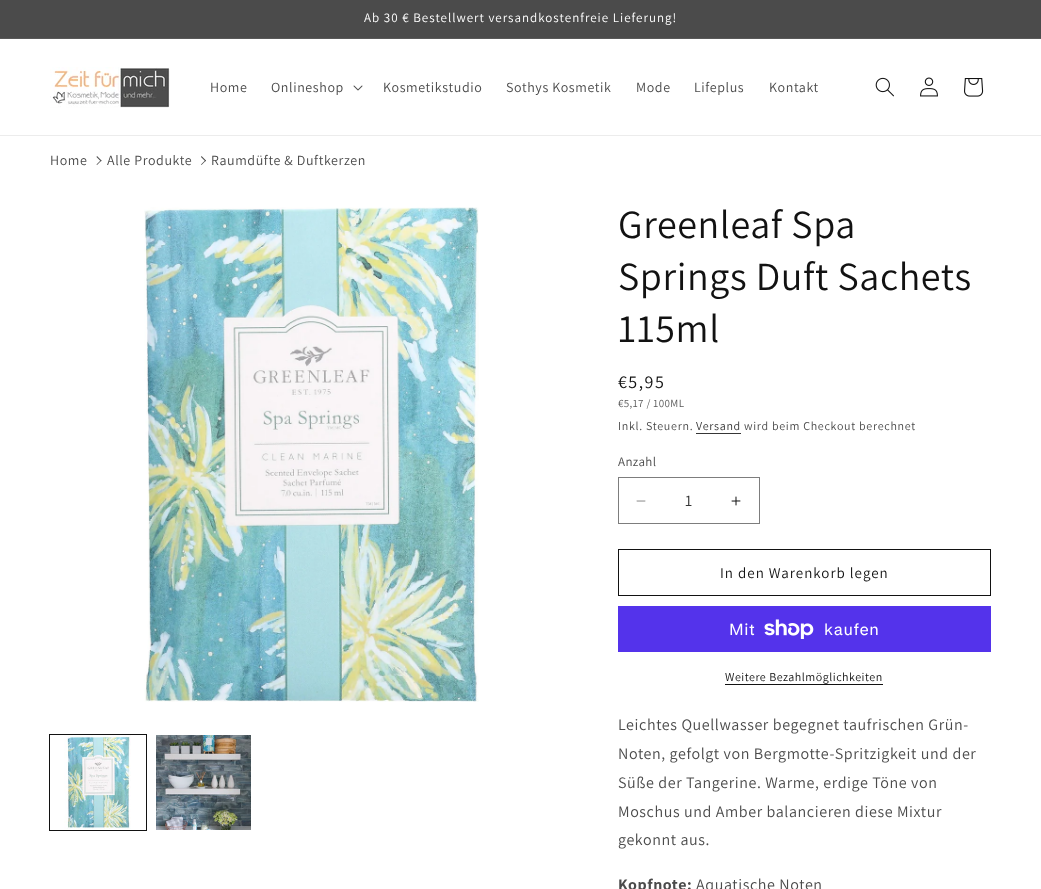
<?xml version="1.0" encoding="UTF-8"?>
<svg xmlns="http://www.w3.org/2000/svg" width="1041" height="889">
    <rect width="100%" height="100%" fill="#FFFFFF"/>
    <rect x="0" y="0" width="1041" height="38" fill="#4B4B4B"/>
    <rect x="0" y="38" width="1041" height="1" fill="#595959"/>
    <text x="364" y="22" font-family="Assistant" font-size="13" letter-spacing="1" fill="#FFFFFF">Ab 30 € Bestellwert versandkostenfreie Lieferung!</text>
    <rect x="0" y="135" width="1041" height="1" fill="#ECECEC"/>
    <image x="50" y="67" width="120" height="41" href="img_01.png"/>
    <text x="210" y="92" font-family="Assistant" font-size="14" letter-spacing="0.6" fill="#4B4B4B">Home</text>
    <text x="271" y="92" font-family="Assistant" font-size="14" letter-spacing="0.6" fill="#4B4B4B">Onlineshop</text>
    <image x="353" y="85" width="10" height="6" href="img_02.png"/>
    <text x="383" y="92" font-family="Assistant" font-size="14" letter-spacing="0.6" fill="#4B4B4B">Kosmetikstudio</text>
    <text x="506" y="92" font-family="Assistant" font-size="14" letter-spacing="0.6" fill="#4B4B4B">Sothys Kosmetik</text>
    <text x="636" y="92" font-family="Assistant" font-size="14" letter-spacing="0.6" fill="#4B4B4B">Mode</text>
    <text x="694" y="92" font-family="Assistant" font-size="14" letter-spacing="0.6" fill="#4B4B4B">Lifeplus</text>
    <text x="769" y="92" font-family="Assistant" font-size="14" letter-spacing="0.6" fill="#4B4B4B">Kontakt</text>
    <image x="875" y="77" width="19" height="20" href="img_03.png"/>
    <image x="920" y="77" width="18" height="20" href="img_04.png"/>
    <image x="964" y="78" width="20" height="19" href="img_05.png"/>
    <text x="50" y="165" font-family="Assistant" font-size="14" letter-spacing="0.6" fill="#4B4B4B">Home</text>
    <path d="M 97 156 L 101.5 160.5 L 101 161.5 L 96.5 157 Z" fill="#4B4B4B"/>
    <path d="M 101 160 L 101.5 160.5 L 97 165 L 96.5 164.5 Z" fill="#4B4B4B"/>
    <text x="107" y="165" font-family="Assistant" font-size="14" letter-spacing="0.6" fill="#4B4B4B">Alle Produkte</text>
    <path d="M 201.5 156 L 206 160.5 L 205.5 161.5 L 201 157 Z" fill="#4B4B4B"/>
    <path d="M 205.5 160 L 206 160.5 L 201.5 165 L 201 164.5 Z" fill="#4B4B4B"/>
    <text x="211" y="165" font-family="Assistant" font-size="14" letter-spacing="0.6" fill="#4B4B4B">Raumdüfte &amp; Duftkerzen</text>
    <image x="144" y="207" width="335" height="495" href="img_06.png"/>
    <rect x="49.5" y="734.5" width="97" height="96" fill="none" stroke="#121212"/>
    <image x="64" y="735" width="67" height="94" href="img_07.png"/>
    <image x="156" y="735" width="95" height="95" href="img_08.png"/>
    <text font-family="Assistant" font-size="40" letter-spacing="0.6" fill="#121212">
        <tspan x="618" y="238">Greenleaf Spa</tspan>
        <tspan x="618" y="290">Springs Duft Sachets</tspan>
        <tspan x="618" y="342">115ml</tspan>
    </text>
    <text x="618" y="388" font-family="Assistant" font-size="18" letter-spacing="1.5" fill="#121212">€5,95</text>
    <text x="618" y="407" font-family="Assistant" font-size="11" letter-spacing="0.4" fill="#595959">€5,17 / 100ML</text>
    <text x="618" y="430" font-family="Assistant" font-size="12" letter-spacing="0.7" fill="#4B4B4B">Inkl. Steuern.</text>
    <text x="696" y="430" font-family="Assistant" font-size="12" letter-spacing="0.7" fill="#363636">Versand</text>
    <rect x="696" y="433" width="45" height="1" fill="#363636"/>
    <text x="744" y="430" font-family="Assistant" font-size="12" letter-spacing="0.7" fill="#4B4B4B">wird beim Checkout berechnet</text>
    <text x="618" y="466" font-family="Assistant" font-size="13" letter-spacing="0.4" fill="#4B4B4B">Anzahl</text>
    <image x="636" y="500" width="10" height="2" href="img_09.png"/>
    <image x="731" y="496" width="10" height="10" href="img_10.png"/>
    <rect x="618.5" y="477.5" width="141" height="46" fill="none" stroke="#7D7D7D"/>
    <text x="685" y="506" font-family="Assistant" font-size="16" fill="#363636">1</text>
    <rect x="618.5" y="549.5" width="372" height="46" fill="none" stroke="#121212"/>
    <text x="720" y="578" font-family="Assistant" font-size="15" letter-spacing="1" fill="#121212">In den Warenkorb legen</text>
    <rect x="618" y="606" width="373" height="46" fill="#5433EB"/>
    <text x="729" y="635" font-family="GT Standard" font-size="16" letter-spacing="0.6" fill="#FFFFFF">Mit</text>
    <image x="764" y="619" width="50" height="20" href="img_11.png"/>
    <text x="824" y="635" font-family="GT Standard" font-size="16" letter-spacing="0.6" fill="#FFFFFF">kaufen</text>
    <text x="725" y="681" font-family="Assistant" font-size="12" letter-spacing="0.5" fill="#121212">Weitere Bezahlmöglichkeiten</text>
    <rect x="725" y="684" width="158" height="1" fill="#121212"/>
    <text font-family="Assistant" font-size="16" letter-spacing="0.6" fill="#4B4B4B">
        <tspan x="618" y="730">Leichtes Quellwasser begegnet taufrischen Grün-</tspan>
        <tspan x="618" y="759">Noten, gefolgt von Bergmotte-Spritzigkeit und der</tspan>
        <tspan x="618" y="788">Süße der Tangerine. Warme, erdige Töne von</tspan>
        <tspan x="618" y="817">Moschus und Amber balancieren diese Mixtur</tspan>
        <tspan x="618" y="845">gekonnt aus.</tspan>
    </text>
    <text x="618" y="890" font-family="Assistant" font-size="16" font-weight="700" letter-spacing="0.6" fill="#4B4B4B">Kopfnote:</text>
    <text x="696" y="890" font-family="Assistant" font-size="16" letter-spacing="0.6" fill="#4B4B4B">Aquatische Noten</text>
</svg>
